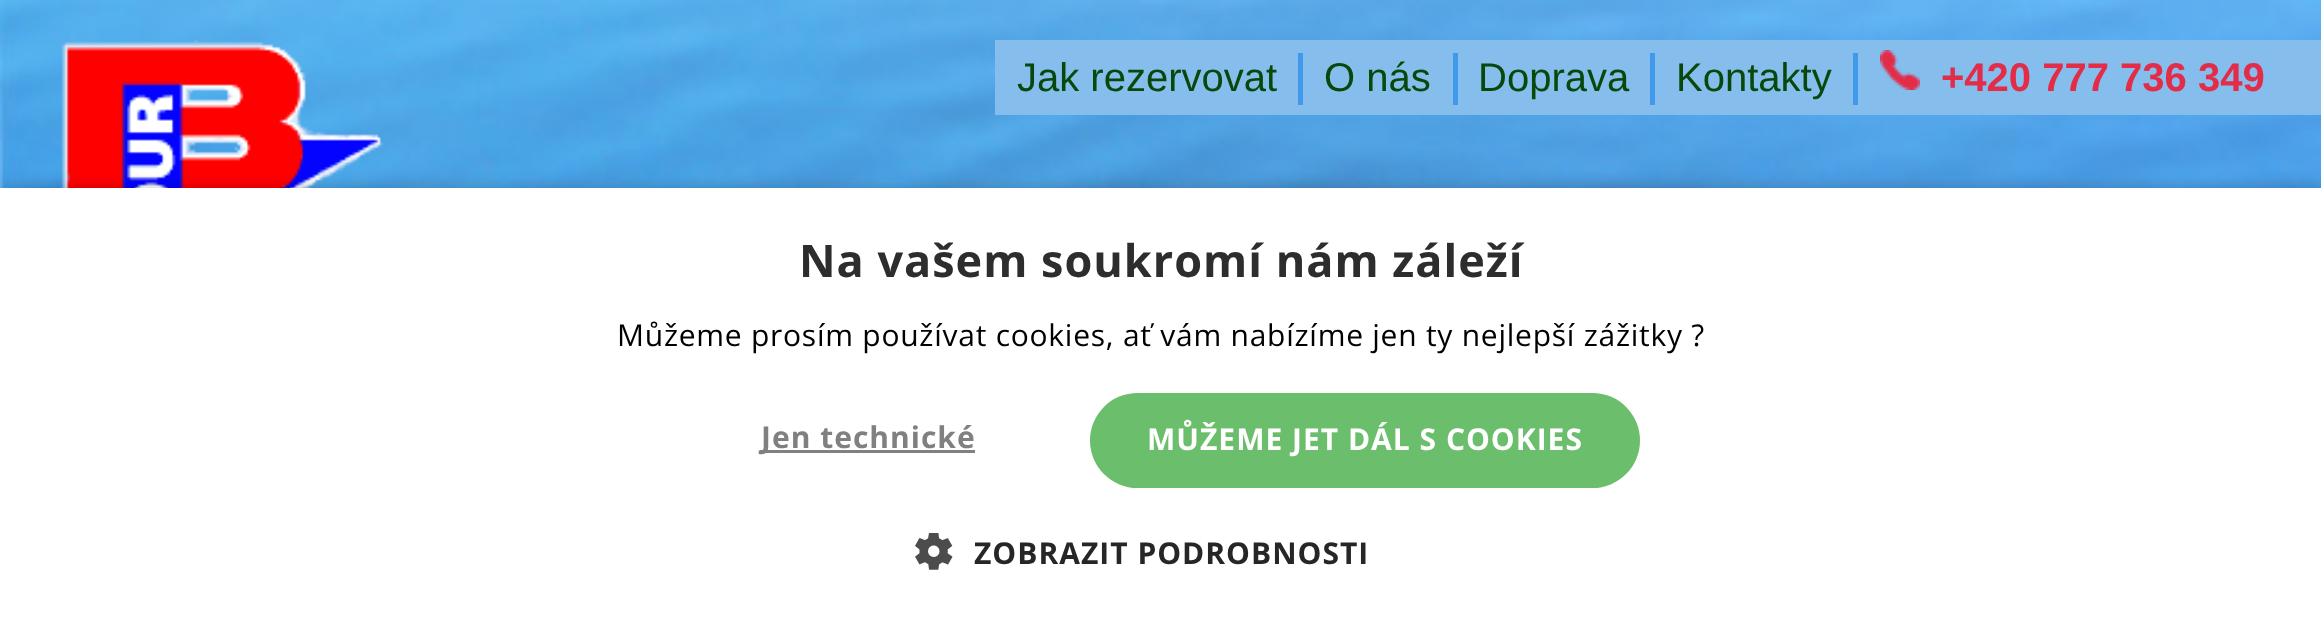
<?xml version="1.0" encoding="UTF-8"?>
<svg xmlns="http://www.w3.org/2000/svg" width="2321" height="631">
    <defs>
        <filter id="blur1" x="-50%" y="-200%" width="200%" height="500%"><feGaussianBlur stdDeviation="10"/></filter>
    </defs>
    <rect width="100%" height="100%" fill="#FFFFFF"/>
    <image x="0" y="0" width="2321" height="188" href="img_01.png"/>
    <image x="61" y="39" width="323" height="149" href="img_02.png"/>
    <rect x="995" y="40" width="1326" height="75" fill="#85BDEC"/>
    <rect x="1298" y="53" width="5" height="52" fill="#4099EB"/>
    <text x="1017" y="91" font-family="Liberation Sans" font-size="40" fill="#08480B">Jak rezervovat</text>
    <rect x="1453" y="53" width="5" height="52" fill="#4099EB"/>
    <text x="1324" y="91" font-family="Liberation Sans" font-size="40" fill="#08480B">O nás</text>
    <rect x="1650" y="53" width="5" height="52" fill="#4099EB"/>
    <text x="1478" y="91" font-family="Liberation Sans" font-size="40" fill="#08480B">Doprava</text>
    <rect x="1853" y="53" width="5" height="52" fill="#4099EB"/>
    <text x="1676" y="91" font-family="Liberation Sans" font-size="40" fill="#08480B">Kontakty</text>
    <image x="1880" y="50" width="40" height="40" href="img_03.png"/>
    <text x="1941" y="91" font-family="Liberation Sans" font-size="40" font-weight="700" fill="#E32C48">+420 777 736 349</text>
    <rect x="3" y="193" width="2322" height="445" fill="#000000" fill-opacity="0.35" filter="url(#blur1)"/>
    <rect x="0" y="188" width="2321" height="443" fill="#FFFFFF"/>
    <text x="799" y="277" font-family="Open Sans" font-size="45" font-weight="700" letter-spacing="1" fill="#2D2D2D">Na vašem soukromí nám záleží</text>
    <text x="617" y="346" font-family="Open Sans" font-size="30" letter-spacing="0.75" fill="#000000">Můžeme prosím používat cookies, ať vám nabízíme jen ty nejlepší zážitky ?</text>
    <rect x="760" y="450" width="215" height="3" fill="#808080"/>
    <text x="761" y="448" font-family="Open Sans" font-size="30" font-weight="700" letter-spacing="1" fill="#808080">Jen technické</text>
    <rect x="1090" y="393" width="550" height="95" rx="47.5" fill="#6BBE6B"/>
    <text x="1147" y="450" font-family="Open Sans" font-size="30" font-weight="700" letter-spacing="1" fill="#FFFFFF">MŮŽEME JET DÁL S COOKIES</text>
    <image x="915" y="533" width="38" height="37" href="img_04.png"/>
    <text x="974" y="564" font-family="Open Sans" font-size="30" font-weight="700" letter-spacing="1" fill="#262626">ZOBRAZIT PODROBNOSTI</text>
</svg>
